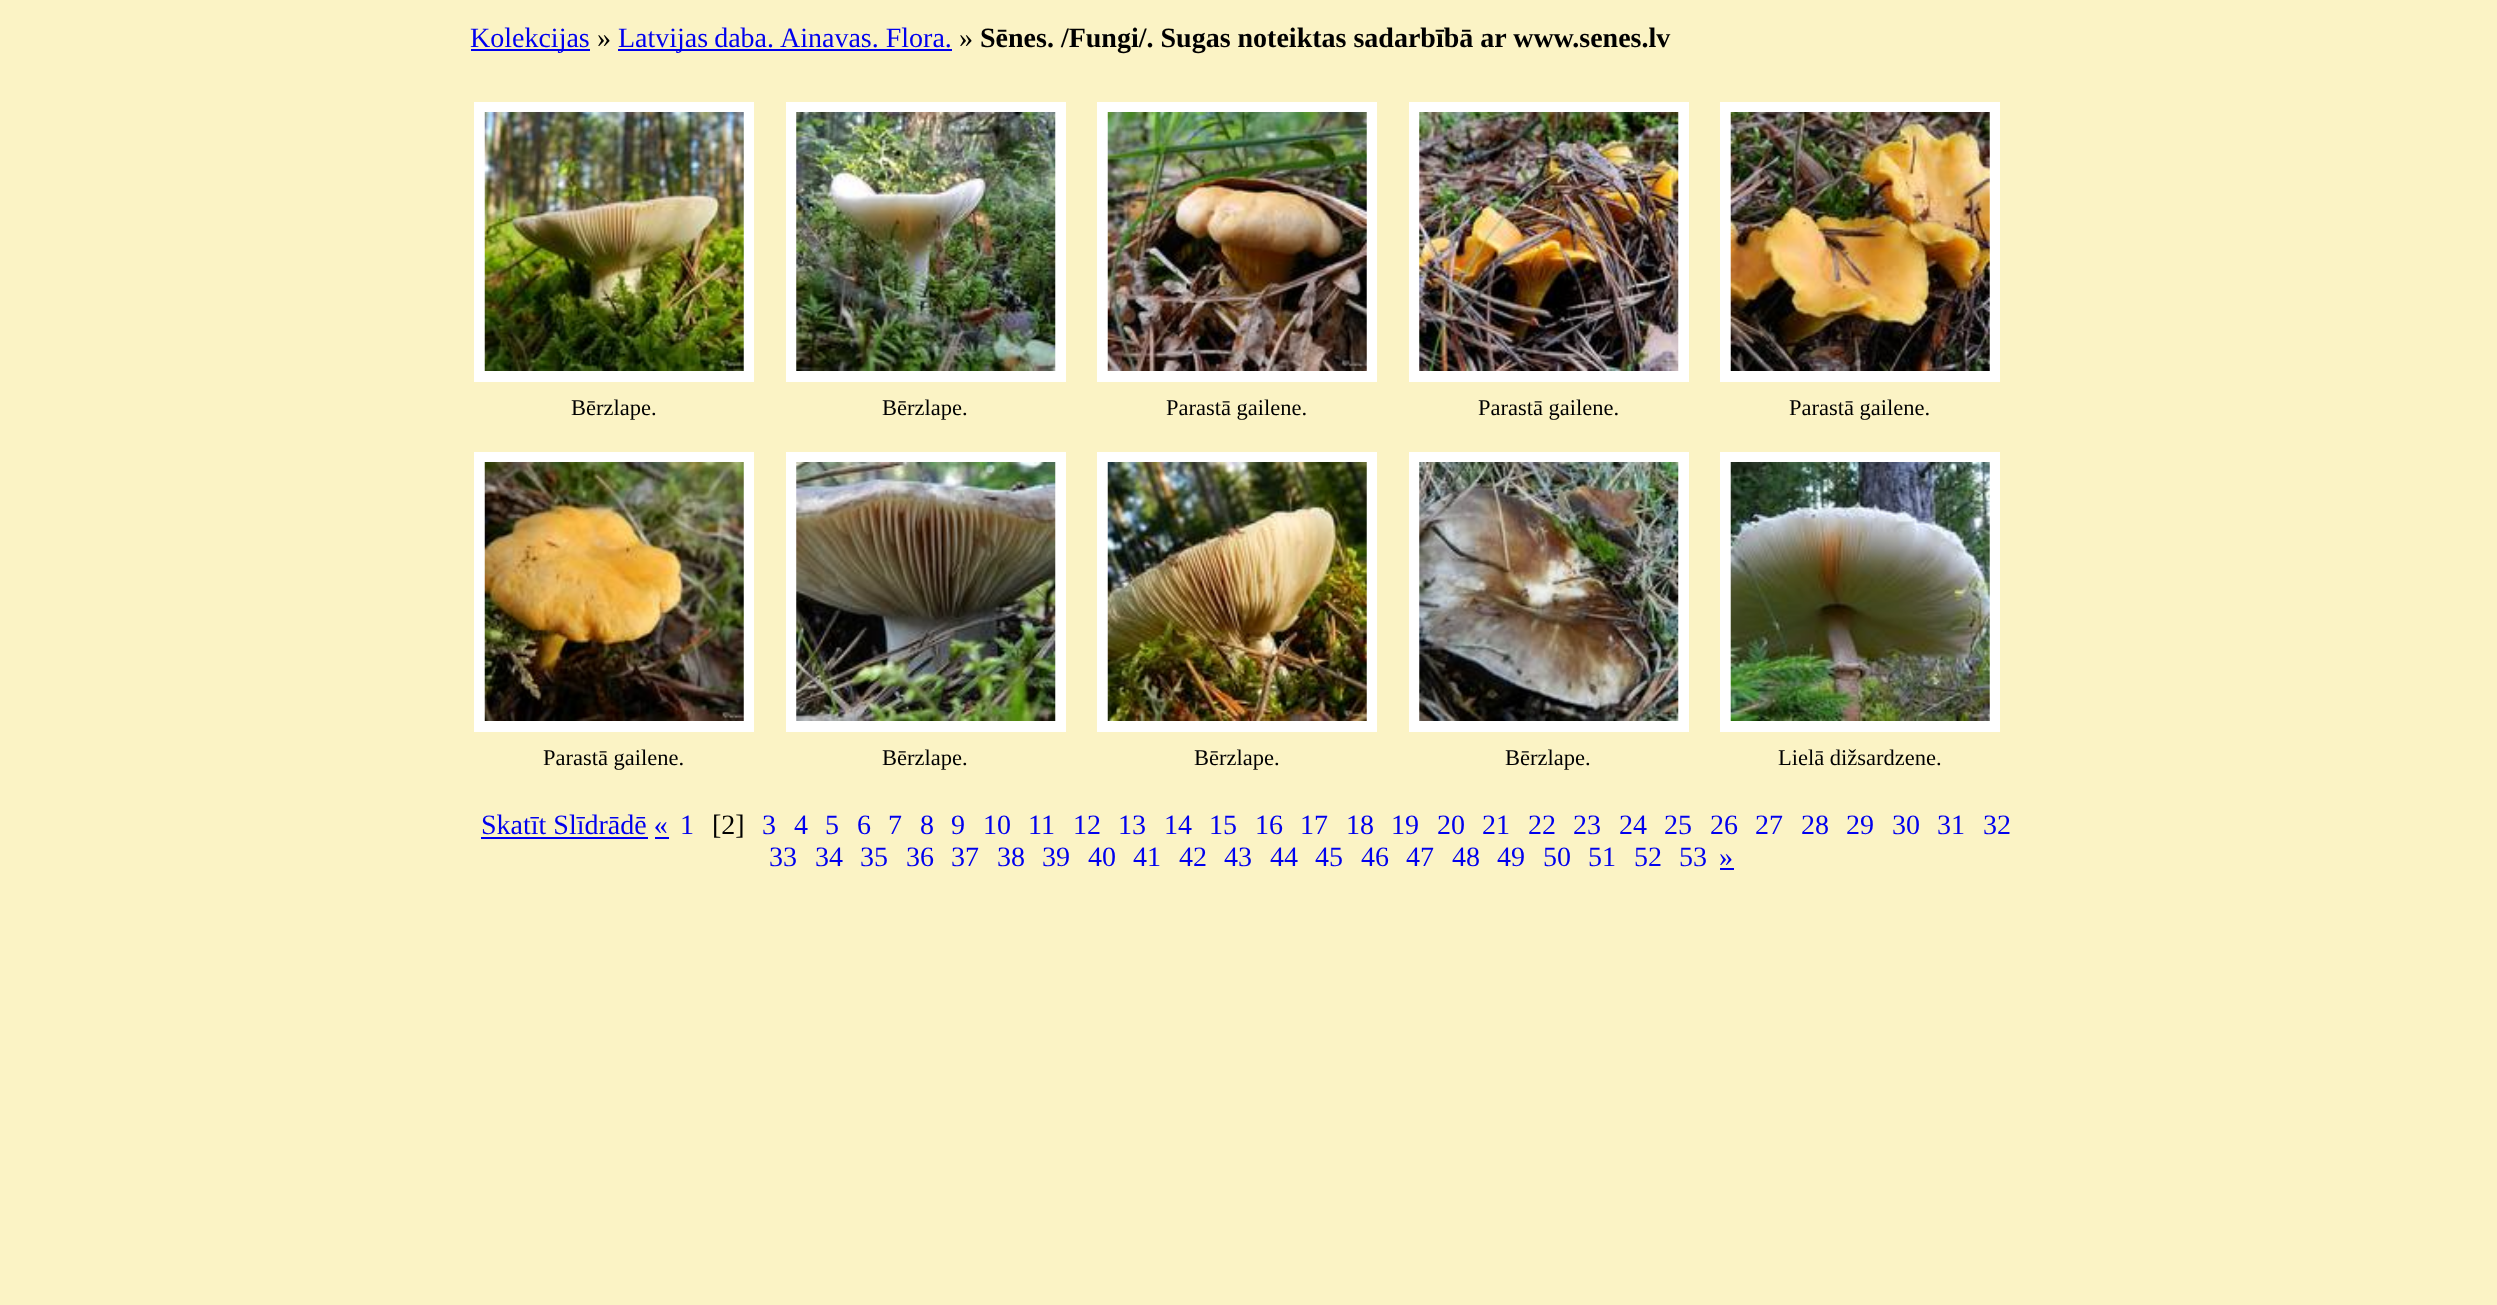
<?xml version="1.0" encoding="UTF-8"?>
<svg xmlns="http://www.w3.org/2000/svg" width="2497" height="1305">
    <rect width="100%" height="100%" fill="#FBF3C5"/>
    <rect x="471" y="49" width="119" height="2" fill="#0000EE"/>
    <text x="470" y="47" font-family="Liberation Serif" font-size="28" fill="#0000EE">Kolekcijas</text>
    <text x="597" y="47" font-family="Liberation Serif" font-size="28" fill="#000000">»</text>
    <rect x="618" y="49" width="334" height="2" fill="#0000EE"/>
    <text x="618" y="47" word-spacing="-1" font-family="Liberation Serif" font-size="28" fill="#0000EE">Latvijas daba.</text>
    <text x="780" y="47" font-family="Liberation Serif" font-size="28" fill="#0000EE">Ainavas. Flora.</text>
    <text x="959" y="47" font-family="Liberation Serif" font-size="28" fill="#000000">»</text>
    <text x="980" y="47" font-family="Liberation Serif" font-size="28" font-weight="700" fill="#000000">Sēnes. /Fungi/. Sugas noteiktas sadarbībā ar www.senes.lv</text>
    <rect x="474" y="102" width="280" height="280" fill="#FFFFFF"/>
    <image x="484" y="112" width="260" height="259" href="img_01.png"/>
    <text x="571" y="415" font-family="Liberation Serif" font-size="22.5" fill="#000000">Bērzlape.</text>
    <rect x="786" y="102" width="280" height="280" fill="#FFFFFF"/>
    <image x="796" y="112" width="260" height="259" href="img_02.png"/>
    <text x="882" y="415" font-family="Liberation Serif" font-size="22.5" fill="#000000">Bērzlape.</text>
    <rect x="1097" y="102" width="280" height="280" fill="#FFFFFF"/>
    <image x="1107" y="112" width="260" height="259" href="img_03.png"/>
    <text x="1166" y="415" font-family="Liberation Serif" font-size="22.5" fill="#000000">Parastā gailene.</text>
    <rect x="1409" y="102" width="280" height="280" fill="#FFFFFF"/>
    <image x="1419" y="112" width="260" height="259" href="img_04.png"/>
    <text x="1478" y="415" font-family="Liberation Serif" font-size="22.5" fill="#000000">Parastā gailene.</text>
    <rect x="1720" y="102" width="280" height="280" fill="#FFFFFF"/>
    <image x="1730" y="112" width="260" height="259" href="img_05.png"/>
    <text x="1789" y="415" font-family="Liberation Serif" font-size="22.5" fill="#000000">Parastā gailene.</text>
    <rect x="474" y="452" width="280" height="280" fill="#FFFFFF"/>
    <image x="484" y="462" width="260" height="259" href="img_06.png"/>
    <text x="543" y="765" font-family="Liberation Serif" font-size="22.5" fill="#000000">Parastā gailene.</text>
    <rect x="786" y="452" width="280" height="280" fill="#FFFFFF"/>
    <image x="796" y="462" width="260" height="259" href="img_07.png"/>
    <text x="882" y="765" font-family="Liberation Serif" font-size="22.5" fill="#000000">Bērzlape.</text>
    <rect x="1097" y="452" width="280" height="280" fill="#FFFFFF"/>
    <image x="1107" y="462" width="260" height="259" href="img_08.png"/>
    <text x="1194" y="765" font-family="Liberation Serif" font-size="22.5" fill="#000000">Bērzlape.</text>
    <rect x="1409" y="452" width="280" height="280" fill="#FFFFFF"/>
    <image x="1419" y="462" width="260" height="259" href="img_09.png"/>
    <text x="1505" y="765" font-family="Liberation Serif" font-size="22.5" fill="#000000">Bērzlape.</text>
    <rect x="1720" y="452" width="280" height="280" fill="#FFFFFF"/>
    <image x="1730" y="462" width="260" height="259" href="img_10.png"/>
    <text x="1778" y="765" font-family="Liberation Serif" font-size="22.5" fill="#000000">Lielā dižsardzene.</text>
    <text x="481" y="834" font-family="Liberation Serif" font-size="28" fill="#0000EE">Skatīt Slīdrādē «</text>
    <rect x="481" y="837" width="167" height="2" fill="#0000EE"/>
    <text x="680" y="834" font-family="Liberation Serif" font-size="28" fill="#0000EE">1</text>
    <text x="712" y="834" font-family="Liberation Serif" font-size="28" fill="#000000">[2]</text>
    <text x="762" y="834" font-family="Liberation Serif" font-size="28" fill="#0000EE">3</text>
    <text x="794" y="834" font-family="Liberation Serif" font-size="28" fill="#0000EE">4</text>
    <text x="825" y="834" font-family="Liberation Serif" font-size="28" fill="#0000EE">5</text>
    <text x="857" y="834" font-family="Liberation Serif" font-size="28" fill="#0000EE">6</text>
    <text x="888" y="834" font-family="Liberation Serif" font-size="28" fill="#0000EE">7</text>
    <text x="920" y="834" font-family="Liberation Serif" font-size="28" fill="#0000EE">8</text>
    <text x="951" y="834" font-family="Liberation Serif" font-size="28" fill="#0000EE">9</text>
    <text x="983" y="834" font-family="Liberation Serif" font-size="28" fill="#0000EE">10</text>
    <text x="1028" y="834" font-family="Liberation Serif" font-size="28" fill="#0000EE">11</text>
    <text x="1073" y="834" font-family="Liberation Serif" font-size="28" fill="#0000EE">12</text>
    <text x="1118" y="834" font-family="Liberation Serif" font-size="28" fill="#0000EE">13</text>
    <text x="1164" y="834" font-family="Liberation Serif" font-size="28" fill="#0000EE">14</text>
    <text x="1209" y="834" font-family="Liberation Serif" font-size="28" fill="#0000EE">15</text>
    <text x="1255" y="834" font-family="Liberation Serif" font-size="28" fill="#0000EE">16</text>
    <text x="1300" y="834" font-family="Liberation Serif" font-size="28" fill="#0000EE">17</text>
    <text x="1346" y="834" font-family="Liberation Serif" font-size="28" fill="#0000EE">18</text>
    <text x="1391" y="834" font-family="Liberation Serif" font-size="28" fill="#0000EE">19</text>
    <text x="1437" y="834" font-family="Liberation Serif" font-size="28" fill="#0000EE">20</text>
    <text x="1482" y="834" font-family="Liberation Serif" font-size="28" fill="#0000EE">21</text>
    <text x="1528" y="834" font-family="Liberation Serif" font-size="28" fill="#0000EE">22</text>
    <text x="1573" y="834" font-family="Liberation Serif" font-size="28" fill="#0000EE">23</text>
    <text x="1619" y="834" font-family="Liberation Serif" font-size="28" fill="#0000EE">24</text>
    <text x="1664" y="834" font-family="Liberation Serif" font-size="28" fill="#0000EE">25</text>
    <text x="1710" y="834" font-family="Liberation Serif" font-size="28" fill="#0000EE">26</text>
    <text x="1755" y="834" font-family="Liberation Serif" font-size="28" fill="#0000EE">27</text>
    <text x="1801" y="834" font-family="Liberation Serif" font-size="28" fill="#0000EE">28</text>
    <text x="1846" y="834" font-family="Liberation Serif" font-size="28" fill="#0000EE">29</text>
    <text x="1892" y="834" font-family="Liberation Serif" font-size="28" fill="#0000EE">30</text>
    <text x="1937" y="834" font-family="Liberation Serif" font-size="28" fill="#0000EE">31</text>
    <text x="1983" y="834" font-family="Liberation Serif" font-size="28" fill="#0000EE">32</text>
    <rect x="655" y="837" width="14" height="2" fill="#0000EE"/>
    <text x="769" y="866" font-family="Liberation Serif" font-size="28" fill="#0000EE">33</text>
    <text x="815" y="866" font-family="Liberation Serif" font-size="28" fill="#0000EE">34</text>
    <text x="860" y="866" font-family="Liberation Serif" font-size="28" fill="#0000EE">35</text>
    <text x="906" y="866" font-family="Liberation Serif" font-size="28" fill="#0000EE">36</text>
    <text x="951" y="866" font-family="Liberation Serif" font-size="28" fill="#0000EE">37</text>
    <text x="997" y="866" font-family="Liberation Serif" font-size="28" fill="#0000EE">38</text>
    <text x="1042" y="866" font-family="Liberation Serif" font-size="28" fill="#0000EE">39</text>
    <text x="1088" y="866" font-family="Liberation Serif" font-size="28" fill="#0000EE">40</text>
    <text x="1133" y="866" font-family="Liberation Serif" font-size="28" fill="#0000EE">41</text>
    <text x="1179" y="866" font-family="Liberation Serif" font-size="28" fill="#0000EE">42</text>
    <text x="1224" y="866" font-family="Liberation Serif" font-size="28" fill="#0000EE">43</text>
    <text x="1270" y="866" font-family="Liberation Serif" font-size="28" fill="#0000EE">44</text>
    <text x="1315" y="866" font-family="Liberation Serif" font-size="28" fill="#0000EE">45</text>
    <text x="1361" y="866" font-family="Liberation Serif" font-size="28" fill="#0000EE">46</text>
    <text x="1406" y="866" font-family="Liberation Serif" font-size="28" fill="#0000EE">47</text>
    <text x="1452" y="866" font-family="Liberation Serif" font-size="28" fill="#0000EE">48</text>
    <text x="1497" y="866" font-family="Liberation Serif" font-size="28" fill="#0000EE">49</text>
    <text x="1543" y="866" font-family="Liberation Serif" font-size="28" fill="#0000EE">50</text>
    <text x="1588" y="866" font-family="Liberation Serif" font-size="28" fill="#0000EE">51</text>
    <text x="1634" y="866" font-family="Liberation Serif" font-size="28" fill="#0000EE">52</text>
    <text x="1679" y="866" font-family="Liberation Serif" font-size="28" fill="#0000EE">53</text>
    <text x="1719" y="866" font-family="Liberation Serif" font-size="28" fill="#0000EE">»</text>
    <rect x="1720" y="868" width="14" height="2" fill="#0000EE"/>
</svg>
